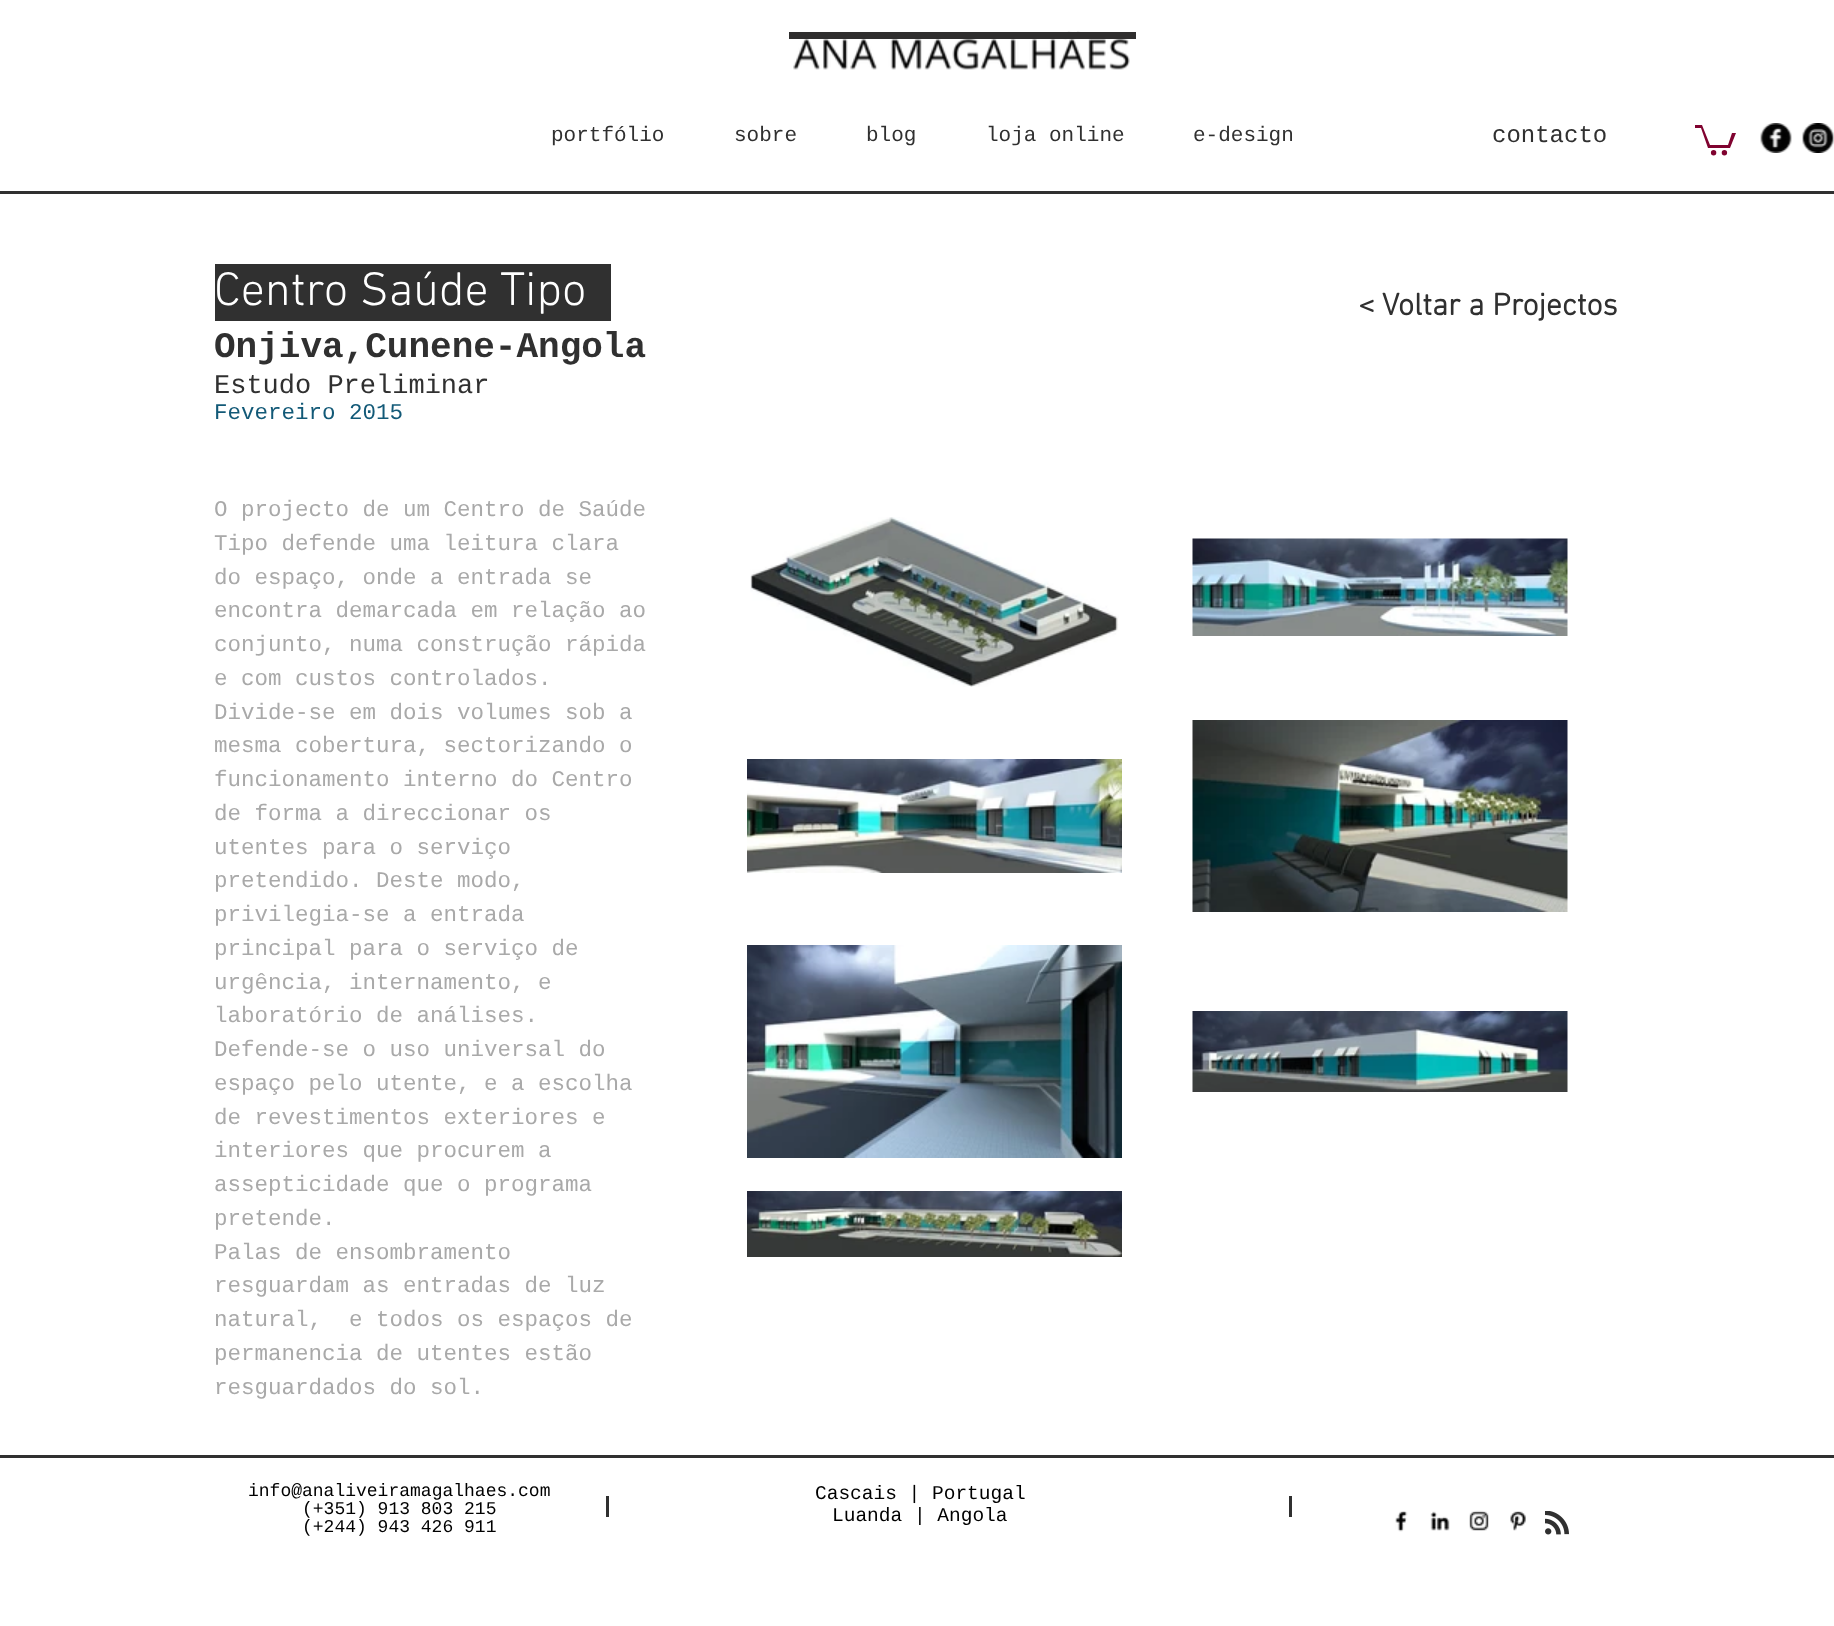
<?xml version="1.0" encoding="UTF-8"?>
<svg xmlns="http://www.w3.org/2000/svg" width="1834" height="1626">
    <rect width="100%" height="100%" fill="#FFFFFF"/>
    <image x="793" y="31" width="337" height="39" href="img_01.png"/>
    <rect x="789" y="32" width="347" height="7" fill="#2F2E2E"/>
    <text x="551" y="141" font-family="Liberation Mono" font-size="21" fill="#303030">portfólio</text>
    <text x="734" y="141" font-family="Liberation Mono" font-size="21" fill="#303030">sobre</text>
    <text x="866" y="141" font-family="Liberation Mono" font-size="21" fill="#303030">blog</text>
    <text x="986" y="141" font-family="Liberation Mono" font-size="21" fill="#303030">loja online</text>
    <text x="1193" y="141" font-family="Liberation Mono" font-size="21" fill="#303030">e-design</text>
    <text x="1492" y="142" font-family="Liberation Mono" font-size="24" fill="#303030">contacto</text>
    <path d="M 1736 133 L 1730 148 H 1708 L 1701 128 H 1695 V 125 H 1702 L 1710 145 H 1728 L 1732 133" fill="#800330"/>
    <circle cx="1724.4" cy="152.8" r="2.7" fill="#800330"/>
    <circle cx="1713.6" cy="152.8" r="2.7" fill="#800330"/>
    <image x="1760" y="123" width="32" height="30" href="img_02.png"/>
    <image x="1802" y="123" width="32" height="30" href="img_03.png"/>
    <rect x="0" y="191" width="1834" height="3" fill="#303030"/>
    <rect x="215" y="264" width="396" height="57" fill="#303030"/>
    <text x="214" y="305" font-family="'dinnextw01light'" font-size="48" font-weight="300" fill="#FFFFFF">Centro Saúde Tipo</text>
    <text x="1358" y="315" font-family="'dinnextw01light'" font-size="31.5" font-weight="700" fill="#303030">&lt; Voltar a Projectos</text>
    <text x="214" y="357" font-family="Liberation Mono" font-size="36" font-weight="700" fill="#303030">Onjiva,Cunene-Angola</text>
    <text x="214" y="393" font-family="Liberation Mono" font-size="27" fill="#303030">Estudo Preliminar</text>
    <text x="214" y="419" font-family="Liberation Mono" font-size="22.5" fill="#125977">Fevereiro 2015</text>
    <text font-family="Liberation Mono" font-size="22.5" fill="#A9A9A9" xml:space="preserve"><tspan x="214" y="516">O projecto de um Centro de Saúde</tspan><tspan x="214" y="550">Tipo defende uma leitura clara</tspan><tspan x="214" y="584">do espaço, onde a entrada se</tspan><tspan x="214" y="617">encontra demarcada em relação ao</tspan><tspan x="214" y="651">conjunto, numa construção rápida</tspan><tspan x="214" y="685">e com custos controlados.</tspan><tspan x="214" y="719">Divide-se em dois volumes sob a</tspan><tspan x="214" y="752">mesma cobertura, sectorizando o</tspan><tspan x="214" y="786">funcionamento interno do Centro</tspan><tspan x="214" y="820">de forma a direccionar os</tspan><tspan x="214" y="854">utentes para o serviço</tspan><tspan x="214" y="887">pretendido. Deste modo,</tspan><tspan x="214" y="921">privilegia-se a entrada</tspan><tspan x="214" y="955">principal para o serviço de</tspan><tspan x="214" y="989">urgência, internamento, e</tspan><tspan x="214" y="1022">laboratório de análises.</tspan><tspan x="214" y="1056">Defende-se o uso universal do</tspan><tspan x="214" y="1090">espaço pelo utente, e a escolha</tspan><tspan x="214" y="1124">de revestimentos exteriores e</tspan><tspan x="214" y="1157">interiores que procurem a</tspan><tspan x="214" y="1191">assepticidade que o programa</tspan><tspan x="214" y="1225">pretende.</tspan><tspan x="214" y="1259">Palas de ensombramento</tspan><tspan x="214" y="1292">resguardam as entradas de luz</tspan><tspan x="214" y="1326">natural,  e todos os espaços de</tspan><tspan x="214" y="1360">permanencia de utentes estão</tspan><tspan x="214" y="1394">resguardados do sol.</tspan></text>
    <image x="750" y="517" width="369" height="170" href="img_04.png"/>
    <image x="1192" y="538" width="376" height="98" href="img_05.png"/>
    <image x="747" y="759" width="375" height="114" href="img_06.png"/>
    <image x="1192" y="720" width="376" height="192" href="img_07.png"/>
    <image x="747" y="945" width="375" height="213" href="img_08.png"/>
    <image x="1192" y="1011" width="376" height="81" href="img_09.png"/>
    <image x="747" y="1191" width="375" height="66" href="img_10.png"/>
    <rect x="0" y="1455" width="1834" height="3" fill="#303030"/>
    <text x="248" y="1496" font-family="Liberation Mono" font-size="18" fill="#000000">info@analiveiramagalhaes.com</text>
    <text font-family="Liberation Mono" font-size="18" fill="#000000">
        <tspan x="302" y="1514">(+351) 913 803 215</tspan>
        <tspan x="302" y="1532">(+244) 943 426 911</tspan>
    </text>
    <rect x="606" y="1496" width="3" height="21" fill="#303030"/>
    <text x="815" y="1499" font-family="Liberation Mono" font-size="19.5" fill="#000000">Cascais | Portugal</text>
    <text x="832" y="1521" font-family="Liberation Mono" font-size="19.5" fill="#000000">Luanda | Angola</text>
    <rect x="1289" y="1496" width="3" height="21" fill="#303030"/>
    <image x="1395" y="1511" width="13" height="21" href="img_11.png"/>
    <image x="1430" y="1511" width="20" height="20" href="img_12.png"/>
    <image x="1469" y="1510" width="20" height="21" href="img_13.png"/>
    <image x="1510" y="1511" width="16" height="20" href="img_14.png"/>
    <image x="1545" y="1511" width="24" height="24" href="img_15.png"/>
</svg>
